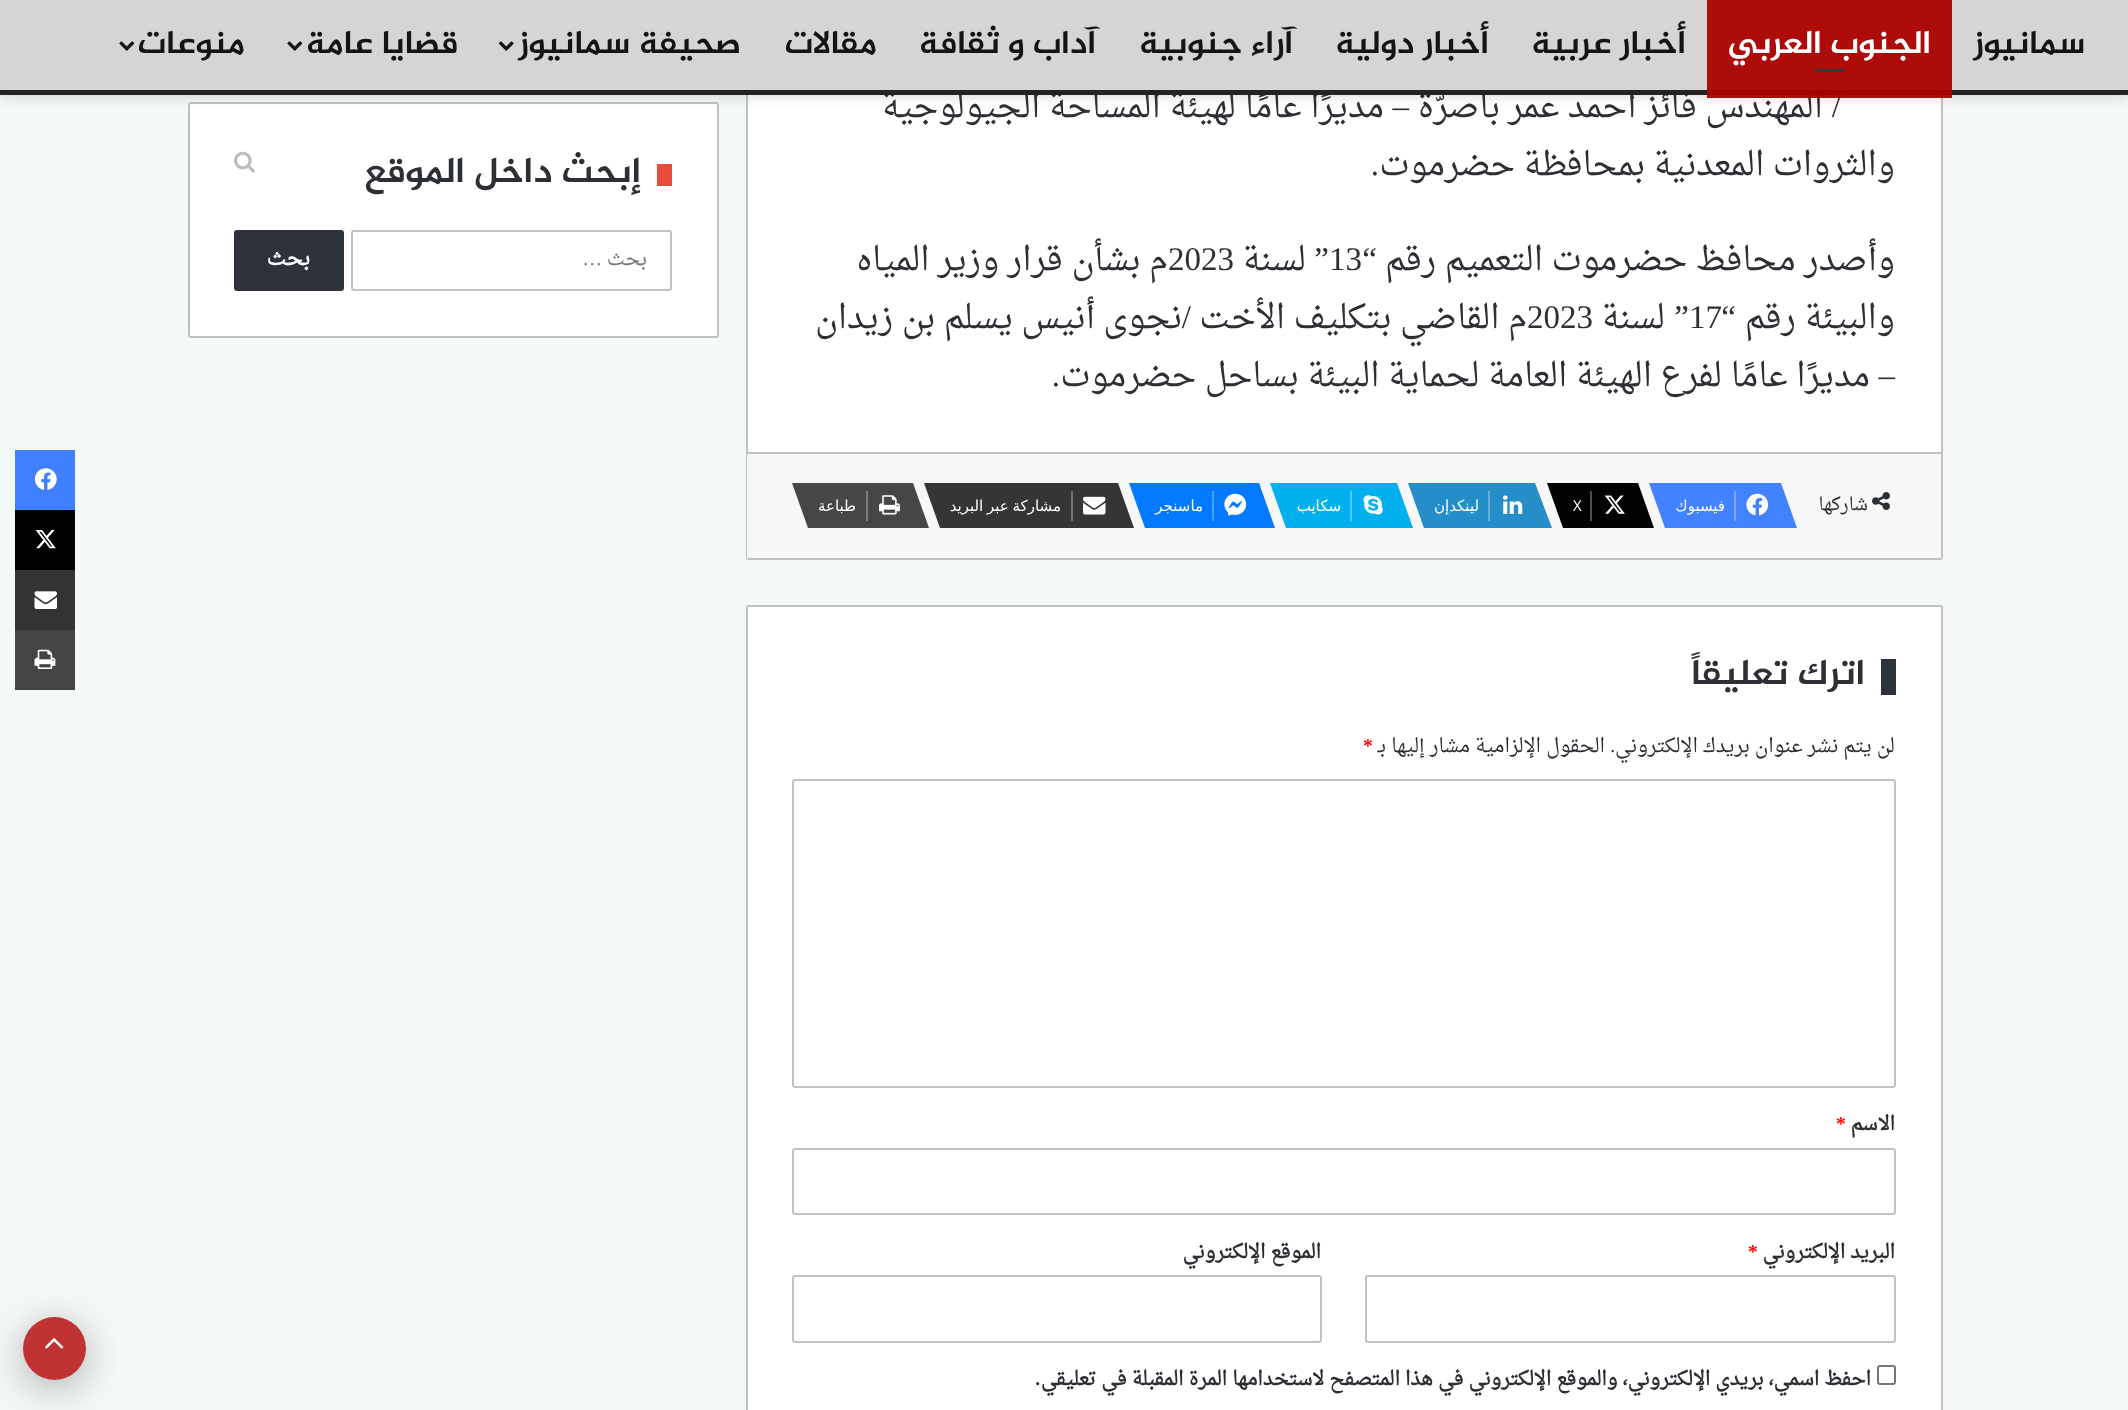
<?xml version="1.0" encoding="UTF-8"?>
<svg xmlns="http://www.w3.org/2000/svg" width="2128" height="1410">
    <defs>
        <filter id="blur1" x="-50%" y="-200%" width="200%" height="500%"><feGaussianBlur stdDeviation="6"/></filter>
        <filter id="blur2" x="-50%" y="-200%" width="200%" height="500%"><feGaussianBlur stdDeviation="19"/></filter>
    </defs>
    <rect width="100%" height="100%" fill="#F5F8F8"/>
    <rect x="747" y="-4" width="1195" height="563" rx="2" fill="#FFFFFF" stroke="#C1C1C1" stroke-width="2"/>
    <rect x="189" y="103" width="529" height="234" rx="2" fill="#FFFFFF" stroke="#C1C1C1" stroke-width="2"/>
    <rect x="0" y="3" width="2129" height="95" fill="#636363" fill-opacity="0.2" filter="url(#blur1)"/>
    <text x="1823" y="117" font-family="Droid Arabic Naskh" font-size="33" direction="rtl" fill="#2C2F34">المهندس فائز أحمد عمر باصرّة</text>
    <rect x="0" y="0" width="2128" height="90" fill="#D5D5D5"/>
    <text x="1384" y="117" font-family="Droid Arabic Naskh" font-size="33" direction="rtl" fill="#2C2F34">مديرًا عامًا لهيئة المساحة الجيولوجية</text>
    <rect x="0" y="90" width="2128" height="5" fill="#232323"/>
    <text x="2085" y="53" font-family="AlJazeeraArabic" font-size="33" font-weight="700" direction="rtl" fill="#141414">سمانيوز</text>
    <text x="1841" y="117" font-family="Liberation Serif" font-size="33" direction="rtl" fill="#2C2F34">/</text>
    <rect x="1707" y="90" width="245" height="8" fill="#AC0000" fill-opacity="0.95"/>
    <rect x="1707" y="0" width="245" height="90" fill="#AE0B0B"/>
    <text x="1931" y="53" font-family="AlJazeeraArabic" font-size="33" font-weight="700" direction="rtl" fill="#FFFFFF">الجنوب العربي</text>
    <rect x="1815" y="69" width="30" height="3" fill="#34373C"/>
    <text x="1686" y="53" font-family="AlJazeeraArabic" font-size="33" font-weight="700" direction="rtl" fill="#141414">أخبار عربية</text>
    <text x="1489" y="53" font-family="AlJazeeraArabic" font-size="33" font-weight="700" direction="rtl" fill="#141414">أخبار دولية</text>
    <text x="1293" y="53" font-family="AlJazeeraArabic" font-size="33" font-weight="700" direction="rtl" fill="#141414">آراء جنوبية</text>
    <text x="1096" y="53" font-family="AlJazeeraArabic" font-size="33" font-weight="700" direction="rtl" fill="#141414">آداب و ثقافة</text>
    <text x="877" y="53" font-family="AlJazeeraArabic" font-size="33" font-weight="700" direction="rtl" fill="#141414">مقالات</text>
    <text x="741" y="53" font-family="AlJazeeraArabic" font-size="33" font-weight="700" direction="rtl" fill="#141414">صحيفة سمانيوز</text>
    <image x="498" y="41" width="16" height="10" href="img_01.png"/>
    <text x="458" y="53" font-family="AlJazeeraArabic" font-size="33" font-weight="700" direction="rtl" fill="#141414">قضايا عامة</text>
    <image x="287" y="41" width="16" height="10" href="img_02.png"/>
    <text x="245" y="53" font-family="AlJazeeraArabic" font-size="33" font-weight="700" direction="rtl" fill="#141414">منوعات</text>
    <image x="119" y="41" width="16" height="10" href="img_02.png"/>
    <text x="1409" y="117" font-family="Liberation Serif" font-size="33" direction="rtl" fill="#2C2F34">–</text>
    <text x="1895" y="175" font-family="Droid Arabic Naskh" font-size="33" direction="rtl" fill="#2C2F34">والثروات المعدنية بمحافظة حضرموت</text>
    <text x="1379" y="175" font-family="Liberation Serif" font-size="33" direction="rtl" fill="#2C2F34">.</text>
    <text x="1895" y="270" font-family="Droid Arabic Naskh" font-size="33" direction="rtl" fill="#2C2F34">وأصدر محافظ حضرموت التعميم رقم</text>
    <text x="1377" y="270" font-family="Liberation Serif" font-size="33" direction="rtl" fill="#2C2F34">“</text>
    <text x="1329" y="270" font-family="Liberation Serif" font-size="33" fill="#2C2F34">13</text>
    <text x="1329" y="270" font-family="Liberation Serif" font-size="33" direction="rtl" fill="#2C2F34">”</text>
    <text x="1306" y="270" font-family="Droid Arabic Naskh" font-size="33" direction="rtl" fill="#2C2F34">لسنة</text>
    <text x="1168" y="270" font-family="Liberation Serif" font-size="33" fill="#2C2F34">2023</text>
    <text x="1168" y="270" font-family="Droid Arabic Naskh" font-size="33" direction="rtl" fill="#2C2F34">م بشأن قرار وزير المياه</text>
    <text x="1895" y="328" font-family="Droid Arabic Naskh" font-size="33" direction="rtl" fill="#2C2F34">والبيئة رقم</text>
    <text x="1736" y="328" font-family="Liberation Serif" font-size="33" direction="rtl" fill="#2C2F34">“</text>
    <text x="1689" y="328" font-family="Liberation Serif" font-size="33" fill="#2C2F34">17</text>
    <text x="1689" y="328" font-family="Liberation Serif" font-size="33" direction="rtl" fill="#2C2F34">”</text>
    <text x="1665" y="328" font-family="Droid Arabic Naskh" font-size="33" direction="rtl" fill="#2C2F34">لسنة</text>
    <text x="1527" y="328" font-family="Liberation Serif" font-size="33" fill="#2C2F34">2023</text>
    <text x="1527" y="328" font-family="Droid Arabic Naskh" font-size="33" direction="rtl" fill="#2C2F34">م القاضي بتكليف الأخت</text>
    <text x="1191" y="328" font-family="Liberation Serif" font-size="33" direction="rtl" fill="#2C2F34">/</text>
    <text x="1182" y="328" font-family="Droid Arabic Naskh" font-size="33" direction="rtl" fill="#2C2F34">نجوى أنيس يسلم بن زيدان</text>
    <text x="1895" y="386" font-family="Liberation Serif" font-size="33" direction="rtl" fill="#2C2F34">–</text>
    <text x="1870" y="386" font-family="Droid Arabic Naskh" font-size="33" direction="rtl" fill="#2C2F34">مديرًا عامًا لفرع الهيئة العامة لحماية البيئة بساحل حضرموت</text>
    <text x="1060" y="386" font-family="Liberation Serif" font-size="33" direction="rtl" fill="#2C2F34">.</text>
    <rect x="747" y="454" width="1194" height="104" fill="#F7F7F7"/>
    <rect x="747" y="452" width="1194" height="2" fill="#C1C1C1"/>
    <image x="1872" y="492" width="18" height="18" href="img_03.png"/>
    <text x="1868" y="510" font-family="Droid Arabic Naskh" font-size="18" direction="rtl" fill="#2C2F34">شاركها</text>
    <path d="M 1649 483 H 1781 L 1797 528 H 1665 Z" fill="#4281FF"/>
    <image x="1746" y="493" width="23" height="23" href="img_04.png"/>
    <rect x="1734" y="491" width="2" height="30" fill="#7BA7FF"/>
    <text x="1725" y="511" font-family="DejaVu Sans" font-size="15" direction="rtl" fill="#FFFFFF">فيسبوك</text>
    <path d="M 1547 483 H 1638 L 1654 528 H 1563 Z" fill="#020202"/>
    <image x="1604" y="495" width="21" height="19" href="img_05.png"/>
    <rect x="1590" y="491" width="2" height="30" fill="#4E4E4E"/>
    <text x="1573" y="511" font-family="Open Sans" font-size="15" fill="#FFFFFF">X</text>
    <path d="M 1408 483 H 1535 L 1552 528 H 1424 Z" fill="#258DC8"/>
    <image x="1503" y="495" width="20" height="19" href="img_06.png"/>
    <rect x="1488" y="491" width="2" height="30" fill="#66AFD9"/>
    <text x="1479" y="511" font-family="DejaVu Sans" font-size="15" direction="rtl" fill="#FFFFFF">لينكدإن</text>
    <path d="M 1270 483 H 1397 L 1413 528 H 1286 Z" fill="#02B0F0"/>
    <image x="1363" y="495" width="20" height="20" href="img_07.png"/>
    <rect x="1350" y="491" width="2" height="30" fill="#4EC8F5"/>
    <text x="1341" y="511" font-family="DejaVu Sans" font-size="15" direction="rtl" fill="#FFFFFF">سكايب</text>
    <path d="M 1129 483 H 1259 L 1275 528 H 1145 Z" fill="#0279FF"/>
    <image x="1224" y="493" width="23" height="23" href="img_08.png"/>
    <rect x="1212" y="491" width="2" height="30" fill="#4EA1FF"/>
    <text x="1203" y="511" font-family="DejaVu Sans" font-size="15" direction="rtl" fill="#FFFFFF">ماسنجر</text>
    <path d="M 924 483 H 1118 L 1134 528 H 940 Z" fill="#353535"/>
    <image x="1083" y="496" width="23" height="19" href="img_09.png"/>
    <rect x="1071" y="491" width="2" height="30" fill="#727272"/>
    <text x="1061" y="511" word-spacing="-1" font-family="DejaVu Sans" font-size="15" direction="rtl" fill="#FFFFFF">مشاركة عبر البريد</text>
    <path d="M 792 483 H 913 L 929 528 H 808 Z" fill="#464646"/>
    <image x="879" y="495" width="21" height="20" href="img_10.png"/>
    <rect x="866" y="491" width="2" height="30" fill="#7E7E7E"/>
    <text x="856" y="511" font-family="DejaVu Sans" font-size="15" direction="rtl" fill="#FFFFFF">طباعة</text>
    <rect x="747" y="606" width="1195" height="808" rx="2" fill="#FFFFFF" stroke="#C1C1C1" stroke-width="2"/>
    <rect x="1881" y="659" width="15" height="36" fill="#2E323C"/>
    <text x="1865" y="684" font-family="AlJazeeraArabic" font-size="36" font-weight="700" direction="rtl" fill="#2C2F34">اترك تعليقاً</text>
    <text x="1895" y="752" font-family="Droid Arabic Naskh" font-size="19.5" direction="rtl" fill="#2C2F34">لن يتم نشر عنوان بريدك الإلكتروني</text>
    <text x="1605" y="752" font-family="Droid Arabic Naskh" font-size="19.5" direction="rtl" fill="#2C2F34">الحقول الإلزامية مشار إليها بـ</text>
    <text x="1363" y="752" font-family="Liberation Serif" font-size="19.5" font-weight="700" fill="#FF0000">*</text>
    <text x="1615" y="752" font-family="Liberation Serif" font-size="19.5" direction="rtl" fill="#2C2F34">.</text>
    <rect x="793" y="780" width="1102" height="307" rx="2" fill="none" stroke="#C1C1C1" stroke-width="2"/>
    <text x="1895" y="1130" font-family="Droid Arabic Naskh" font-size="19.5" font-weight="700" direction="rtl" fill="#2C2F34">الاسم</text>
    <text x="1836" y="1130" font-family="Liberation Serif" font-size="19.5" font-weight="700" fill="#FF0000">*</text>
    <rect x="793" y="1149" width="1102" height="65" rx="2" fill="none" stroke="#C1C1C1" stroke-width="2"/>
    <text x="1895" y="1258" font-family="Droid Arabic Naskh" font-size="19.5" font-weight="700" direction="rtl" fill="#2C2F34">البريد الإلكتروني</text>
    <text x="1748" y="1258" font-family="Liberation Serif" font-size="19.5" font-weight="700" fill="#FF0000">*</text>
    <rect x="1366" y="1276" width="529" height="66" rx="2" fill="none" stroke="#C1C1C1" stroke-width="2"/>
    <text x="1321" y="1258" font-family="Droid Arabic Naskh" font-size="19.5" font-weight="700" direction="rtl" fill="#2C2F34">الموقع الإلكتروني</text>
    <rect x="793" y="1276" width="528" height="66" rx="2" fill="none" stroke="#C1C1C1" stroke-width="2"/>
    <rect x="1878" y="1366" width="17" height="18" rx="2" fill="none" stroke="#767676" stroke-width="2"/>
    <text x="1871" y="1385" font-family="Droid Arabic Naskh" font-size="19.5" font-weight="700" direction="rtl" fill="#2C2F34">احفظ اسمي، بريدي الإلكتروني، والموقع الإلكتروني في هذا المتصفح لاستخدامها المرة المقبلة في تعليقي</text>
    <text x="1040" y="1385" font-family="Liberation Serif" font-size="19.5" font-weight="700" direction="rtl" fill="#2C2F34">.</text>
    <rect x="657" y="164" width="15" height="22" fill="#E74C3C"/>
    <text x="641" y="182" font-family="AlJazeeraArabic" font-size="36" font-weight="700" direction="rtl" fill="#2C2F34">إبحث داخل الموقع</text>
    <image x="234" y="151" width="21" height="22" href="img_11.png"/>
    <rect x="352" y="231" width="319" height="59" rx="2" fill="none" stroke="#C1C1C1" stroke-width="2"/>
    <text x="647" y="265" font-family="Droid Arabic Naskh" font-size="19.5" direction="rtl" fill="#757575">بحث</text>
    <text x="602" y="265" font-family="Liberation Serif" font-size="19.5" direction="rtl" fill="#757575">…</text>
    <rect x="234" y="230" width="110" height="61" rx="3" fill="#2E323C"/>
    <text x="310" y="265" font-family="Droid Arabic Naskh" font-size="21" font-weight="700" direction="rtl" fill="#FFFFFF">بحث</text>
    <rect x="15" y="450" width="60" height="60" fill="#4080FF"/>
    <image x="34" y="468" width="23" height="22" href="img_12.png"/>
    <rect x="15" y="510" width="60" height="60" fill="#000000"/>
    <image x="35" y="530" width="21" height="19" href="img_13.png"/>
    <rect x="15" y="570" width="60" height="60" fill="#333333"/>
    <image x="34" y="591" width="23" height="18" href="img_14.png"/>
    <rect x="15" y="630" width="60" height="60" fill="#444444"/>
    <image x="34" y="649" width="22" height="20" href="img_15.png"/>
    <rect x="23" y="1325" width="63" height="63" rx="31.5" fill="#000000" fill-opacity="0.3" filter="url(#blur2)"/>
    <circle cx="54.5" cy="1348.5" r="31.5" fill="#C13232"/>
    <image x="44" y="1338" width="20" height="11" href="img_16.png"/>
</svg>
